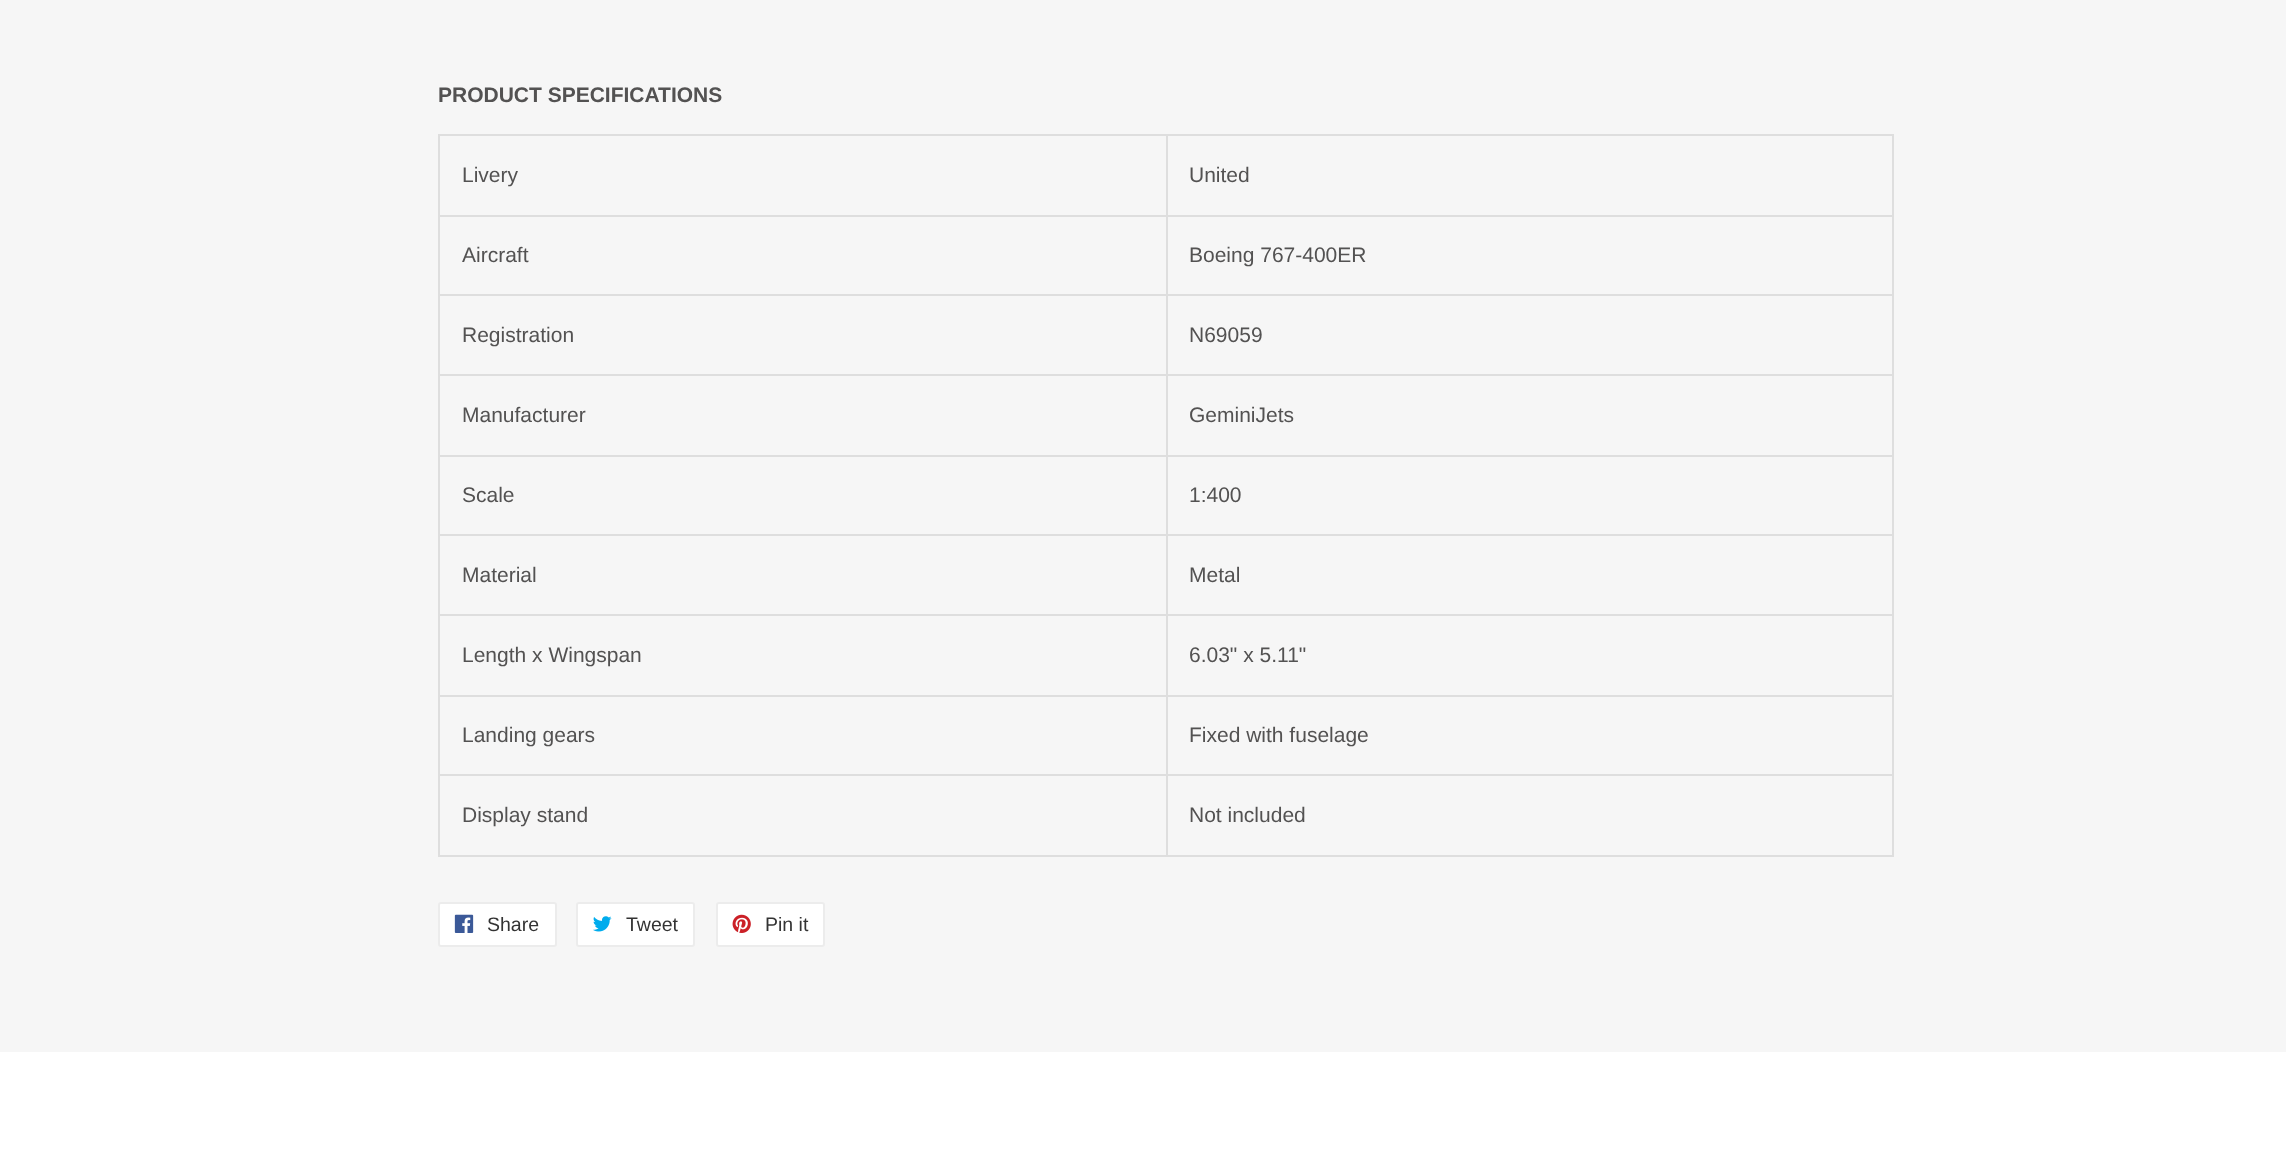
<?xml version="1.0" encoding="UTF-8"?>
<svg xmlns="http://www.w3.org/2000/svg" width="2286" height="1154">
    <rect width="100%" height="100%" fill="#F6F6F6"/>
    <text x="438" y="102" font-family="Liberation Sans" font-size="21" font-weight="700" fill="#535252">PRODUCT SPECIFICATIONS</text>
    <rect x="1166" y="134" width="727" height="2" fill="#DEDEDE"/>
    <rect x="1166" y="215" width="727" height="2" fill="#DEDEDE"/>
    <rect x="1166" y="294" width="727" height="2" fill="#DEDEDE"/>
    <rect x="1166" y="374" width="727" height="2" fill="#DEDEDE"/>
    <rect x="1166" y="455" width="727" height="2" fill="#DEDEDE"/>
    <rect x="1166" y="534" width="727" height="2" fill="#DEDEDE"/>
    <rect x="1166" y="614" width="727" height="2" fill="#DEDEDE"/>
    <rect x="1166" y="695" width="727" height="2" fill="#DEDEDE"/>
    <rect x="1166" y="774" width="727" height="2" fill="#DEDEDE"/>
    <rect x="1892" y="774" width="2" height="83" fill="#DEDEDE"/>
    <rect x="1166" y="855" width="727" height="2" fill="#DEDEDE"/>
    <rect x="1166" y="774" width="2" height="83" fill="#DEDEDE"/>
    <rect x="438" y="774" width="729" height="2" fill="#DEDEDE"/>
    <rect x="1166" y="695" width="2" height="81" fill="#DEDEDE"/>
    <rect x="438" y="695" width="729" height="2" fill="#DEDEDE"/>
    <rect x="1166" y="614" width="2" height="82" fill="#DEDEDE"/>
    <rect x="438" y="614" width="729" height="2" fill="#DEDEDE"/>
    <rect x="1166" y="534" width="2" height="81" fill="#DEDEDE"/>
    <rect x="438" y="534" width="729" height="2" fill="#DEDEDE"/>
    <rect x="1166" y="455" width="2" height="81" fill="#DEDEDE"/>
    <rect x="438" y="455" width="729" height="2" fill="#DEDEDE"/>
    <rect x="1166" y="374" width="2" height="82" fill="#DEDEDE"/>
    <rect x="438" y="374" width="729" height="2" fill="#DEDEDE"/>
    <rect x="1166" y="294" width="2" height="81" fill="#DEDEDE"/>
    <rect x="438" y="294" width="729" height="2" fill="#DEDEDE"/>
    <rect x="1166" y="215" width="2" height="81" fill="#DEDEDE"/>
    <rect x="438" y="215" width="729" height="2" fill="#DEDEDE"/>
    <rect x="1166" y="134" width="2" height="82" fill="#DEDEDE"/>
    <rect x="438" y="134" width="729" height="2" fill="#DEDEDE"/>
    <rect x="438" y="855" width="729" height="2" fill="#DEDEDE"/>
    <rect x="438" y="774" width="2" height="83" fill="#DEDEDE"/>
    <rect x="438" y="695" width="2" height="81" fill="#DEDEDE"/>
    <rect x="438" y="614" width="2" height="82" fill="#DEDEDE"/>
    <rect x="438" y="534" width="2" height="81" fill="#DEDEDE"/>
    <rect x="438" y="455" width="2" height="81" fill="#DEDEDE"/>
    <rect x="438" y="374" width="2" height="82" fill="#DEDEDE"/>
    <rect x="438" y="294" width="2" height="81" fill="#DEDEDE"/>
    <rect x="438" y="215" width="2" height="81" fill="#DEDEDE"/>
    <rect x="438" y="134" width="2" height="82" fill="#DEDEDE"/>
    <text x="462" y="182" font-family="Liberation Sans" font-size="21" fill="#535252">Livery</text>
    <rect x="1892" y="695" width="2" height="81" fill="#DEDEDE"/>
    <rect x="1892" y="614" width="2" height="82" fill="#DEDEDE"/>
    <rect x="1892" y="534" width="2" height="81" fill="#DEDEDE"/>
    <rect x="1892" y="455" width="2" height="81" fill="#DEDEDE"/>
    <rect x="1892" y="374" width="2" height="82" fill="#DEDEDE"/>
    <rect x="1892" y="294" width="2" height="81" fill="#DEDEDE"/>
    <rect x="1892" y="215" width="2" height="81" fill="#DEDEDE"/>
    <rect x="1892" y="134" width="2" height="82" fill="#DEDEDE"/>
    <text x="1189" y="182" font-family="Liberation Sans" font-size="21" fill="#535252">United</text>
    <text x="462" y="262" font-family="Liberation Sans" font-size="21" fill="#535252">Aircraft</text>
    <text x="1189" y="262" font-family="Liberation Sans" font-size="21" fill="#535252">Boeing 767-400ER</text>
    <text x="462" y="342" font-family="Liberation Sans" font-size="21" fill="#535252">Registration</text>
    <text x="1189" y="342" font-family="Liberation Sans" font-size="21" fill="#535252">N69059</text>
    <text x="462" y="422" font-family="Liberation Sans" font-size="21" fill="#535252">Manufacturer</text>
    <text x="1189" y="422" font-family="Liberation Sans" font-size="21" fill="#535252">GeminiJets</text>
    <text x="462" y="502" font-family="Liberation Sans" font-size="21" fill="#535252">Scale</text>
    <text x="1189" y="502" font-family="Liberation Sans" font-size="21" fill="#535252">1:400</text>
    <text x="462" y="582" font-family="Liberation Sans" font-size="21" fill="#535252">Material</text>
    <text x="1189" y="582" font-family="Liberation Sans" font-size="21" fill="#535252">Metal</text>
    <text x="462" y="662" font-family="Liberation Sans" font-size="21" fill="#535252">Length x Wingspan</text>
    <text x="1189" y="662" font-family="Liberation Sans" font-size="21" fill="#535252">6.03" x 5.11"</text>
    <text x="462" y="742" font-family="Liberation Sans" font-size="21" fill="#535252">Landing gears</text>
    <text x="1189" y="742" font-family="Liberation Sans" font-size="21" fill="#535252">Fixed with fuselage</text>
    <text x="462" y="822" font-family="Liberation Sans" font-size="21" fill="#535252">Display stand</text>
    <text x="1189" y="822" font-family="Liberation Sans" font-size="21" fill="#535252">Not included</text>
    <rect x="439" y="903" width="117" height="43" rx="2" fill="#FFFFFF" stroke="#ECECEC" stroke-width="2"/>
    <image x="454" y="914" width="20" height="19" href="img_01.png"/>
    <text x="487" y="931" font-family="Liberation Sans" font-size="19.5" fill="#333333">Share</text>
    <rect x="577" y="903" width="117" height="43" rx="2" fill="#FFFFFF" stroke="#ECECEC" stroke-width="2"/>
    <image x="593" y="916" width="19" height="16" href="img_02.png"/>
    <text x="626" y="931" font-family="Liberation Sans" font-size="19.5" fill="#333333">Tweet</text>
    <rect x="717" y="903" width="107" height="43" rx="2" fill="#FFFFFF" stroke="#ECECEC" stroke-width="2"/>
    <image x="732" y="914" width="19" height="19" href="img_03.png"/>
    <text x="765" y="931" font-family="Liberation Sans" font-size="19.5" fill="#333333">Pin it</text>
    <rect x="0" y="1052" width="2286" height="102" fill="#FFFFFF"/>
</svg>
